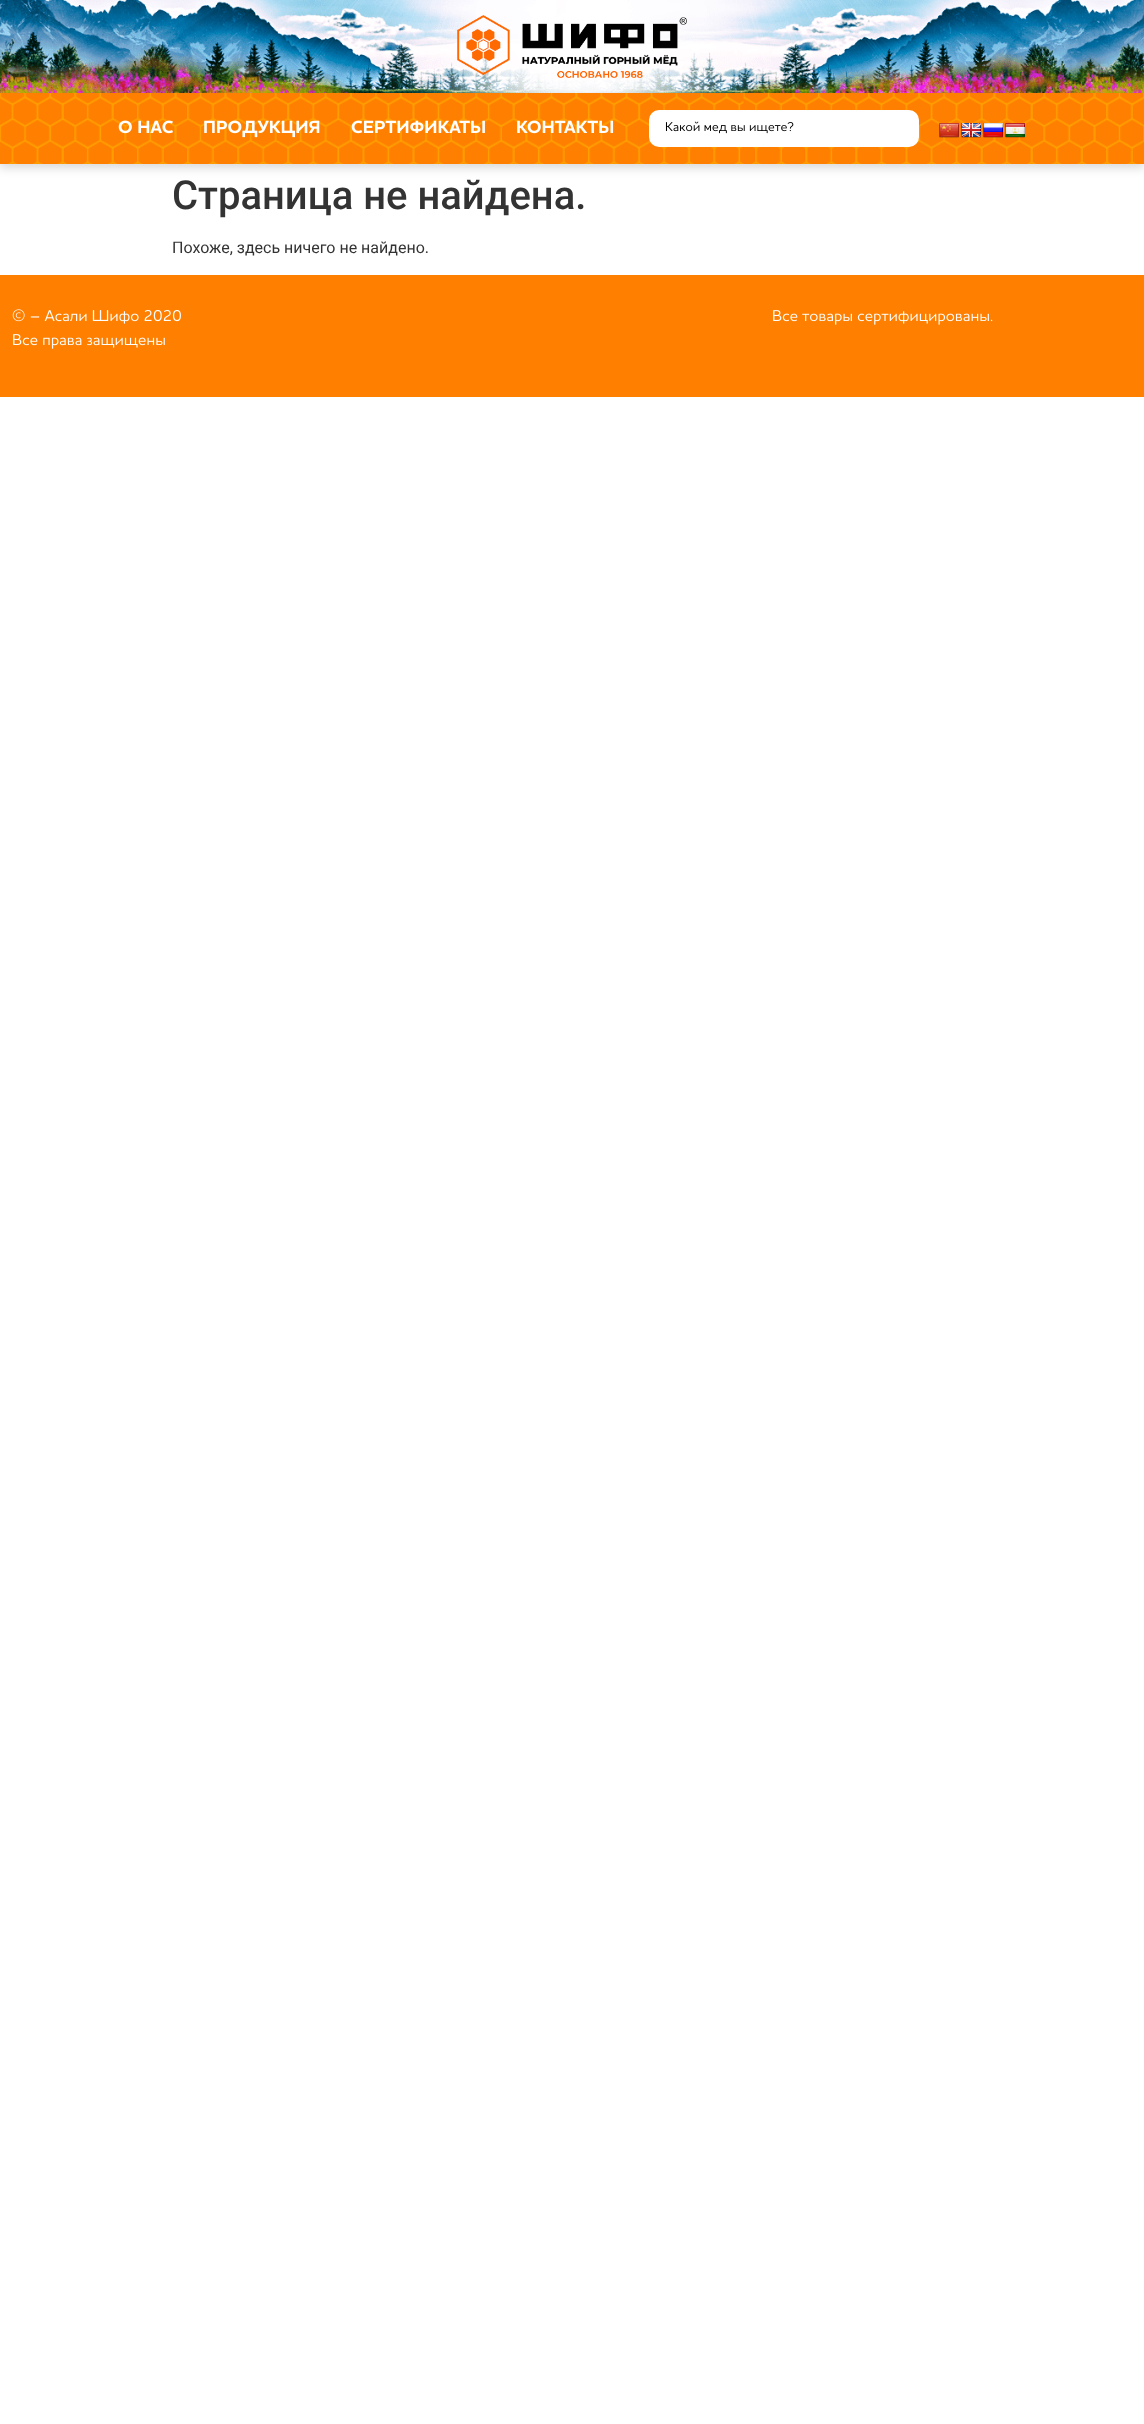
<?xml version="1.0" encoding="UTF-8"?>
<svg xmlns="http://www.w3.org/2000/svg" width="1144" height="2424">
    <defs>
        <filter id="blur1" x="-50%" y="-200%" width="200%" height="500%"><feGaussianBlur stdDeviation="5"/></filter>
    </defs>
    <rect width="100%" height="100%" fill="#FFFFFF"/>
    <image x="0" y="0" width="1144" height="93" href="img_01.png"/>
    <image x="457" y="15" width="230" height="63" href="img_02.png"/>
    <rect x="0" y="97" width="1144" height="71" fill="#000000" fill-opacity="0.15" filter="url(#blur1)"/>
    <rect x="0" y="93" width="1144" height="71" fill="#FF8000"/>
    <image x="0" y="93" width="1144" height="71" href="img_03.png"/>
    <image x="118" y="120" width="55" height="14" href="img_04.png"/>
    <image x="204" y="120" width="116" height="18" href="img_05.png"/>
    <image x="351" y="120" width="134" height="14" href="img_06.png"/>
    <image x="517" y="120" width="97" height="14" href="img_07.png"/>
    <rect x="649" y="110" width="270" height="37" rx="10" fill="#FFFFFF"/>
    <image x="665" y="121" width="129" height="13" href="img_08.png"/>
    <image x="939" y="123" width="20" height="15" href="img_09.png"/>
    <image x="961" y="123" width="20" height="15" href="img_10.png"/>
    <image x="983" y="123" width="20" height="15" href="img_11.png"/>
    <image x="1005" y="123" width="20" height="15" href="img_12.png"/>
    <text x="172" y="209" font-family="Roboto" font-size="40" font-weight="500" fill="#333333">Страница не найдена.</text>
    <text x="172" y="253" font-family="Roboto" font-size="16" fill="#333333">Похоже, здесь ничего не найдено.</text>
    <rect x="0" y="275" width="1144" height="122" fill="#FF8000"/>
    <image x="12" y="309" width="169" height="15" href="img_13.png"/>
    <image x="13" y="334" width="152" height="15" href="img_14.png"/>
    <image x="773" y="310" width="220" height="15" href="img_15.png"/>
</svg>
